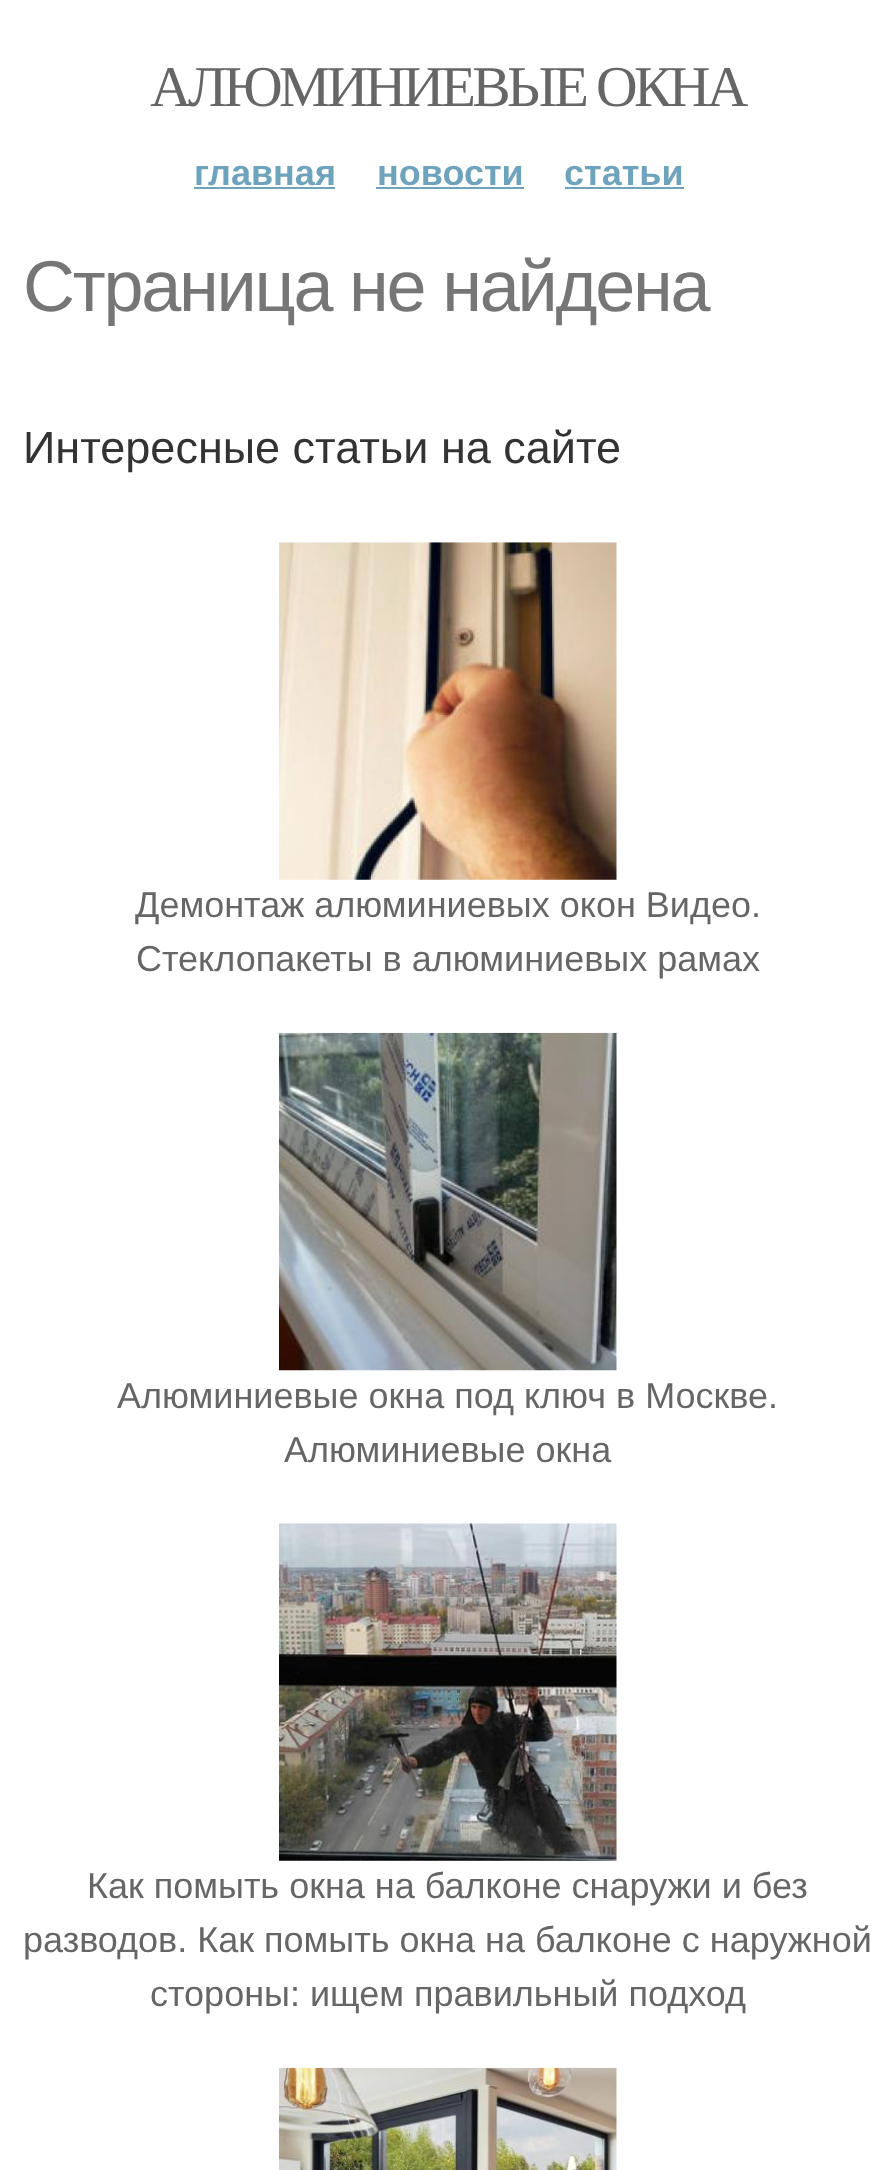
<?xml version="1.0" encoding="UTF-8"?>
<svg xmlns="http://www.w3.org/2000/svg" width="894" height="2170">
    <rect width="100%" height="100%" fill="#FFFFFF"/>
    <text x="150" y="106" font-family="Liberation Serif" font-size="57.6" letter-spacing="-3.6" fill="#666666">АЛЮМИНИЕВЫЕ ОКНА</text>
    <text x="194" y="185" font-family="Liberation Sans" font-size="36" font-weight="700" fill="#6DA3BD">главная</text>
    <rect x="194" y="187" width="141" height="2" fill="#6DA3BD"/>
    <text x="377" y="185" font-family="Liberation Sans" font-size="36" font-weight="700" fill="#6DA3BD">новости</text>
    <rect x="376" y="187" width="148" height="2" fill="#6DA3BD"/>
    <text x="564" y="185" font-family="Liberation Sans" font-size="36" font-weight="700" fill="#6DA3BD">статьи</text>
    <rect x="565" y="187" width="119" height="2" fill="#6DA3BD"/>
    <text x="23" y="311" font-family="Liberation Sans" font-size="72" letter-spacing="-2.25" fill="#767676">Страница не найдена</text>
    <text x="23" y="463" font-family="Liberation Sans" font-size="45" fill="#333333">Интересные статьи на сайте</text>
    <image x="279" y="542" width="338" height="338" href="img_01.png"/>
    <text x="135" y="917" font-family="Liberation Sans" font-size="36" fill="#666666">Демонтаж алюминиевых окон Видео.</text>
    <text x="136" y="971" font-family="Liberation Sans" font-size="36" fill="#666666">Стеклопакеты в алюминиевых рамах</text>
    <image x="279" y="1032" width="338" height="339" href="img_02.png"/>
    <text x="117" y="1408" font-family="Liberation Sans" font-size="36" fill="#666666">Алюминиевые окна под ключ в Москве.</text>
    <text x="284" y="1462" font-family="Liberation Sans" font-size="36" fill="#666666">Алюминиевые окна</text>
    <image x="279" y="1523" width="338" height="338" href="img_03.png"/>
    <text x="87" y="1898" font-family="Liberation Sans" font-size="36" fill="#666666">Как помыть окна на балконе снаружи и без</text>
    <text x="23" y="1952" font-family="Liberation Sans" font-size="36" fill="#666666">разводов. Как помыть окна на балконе с наружной</text>
    <text x="150" y="2006" font-family="Liberation Sans" font-size="36" fill="#666666">стороны: ищем правильный подход</text>
    <image x="279" y="2067" width="338" height="103" href="img_04.png"/>
</svg>
